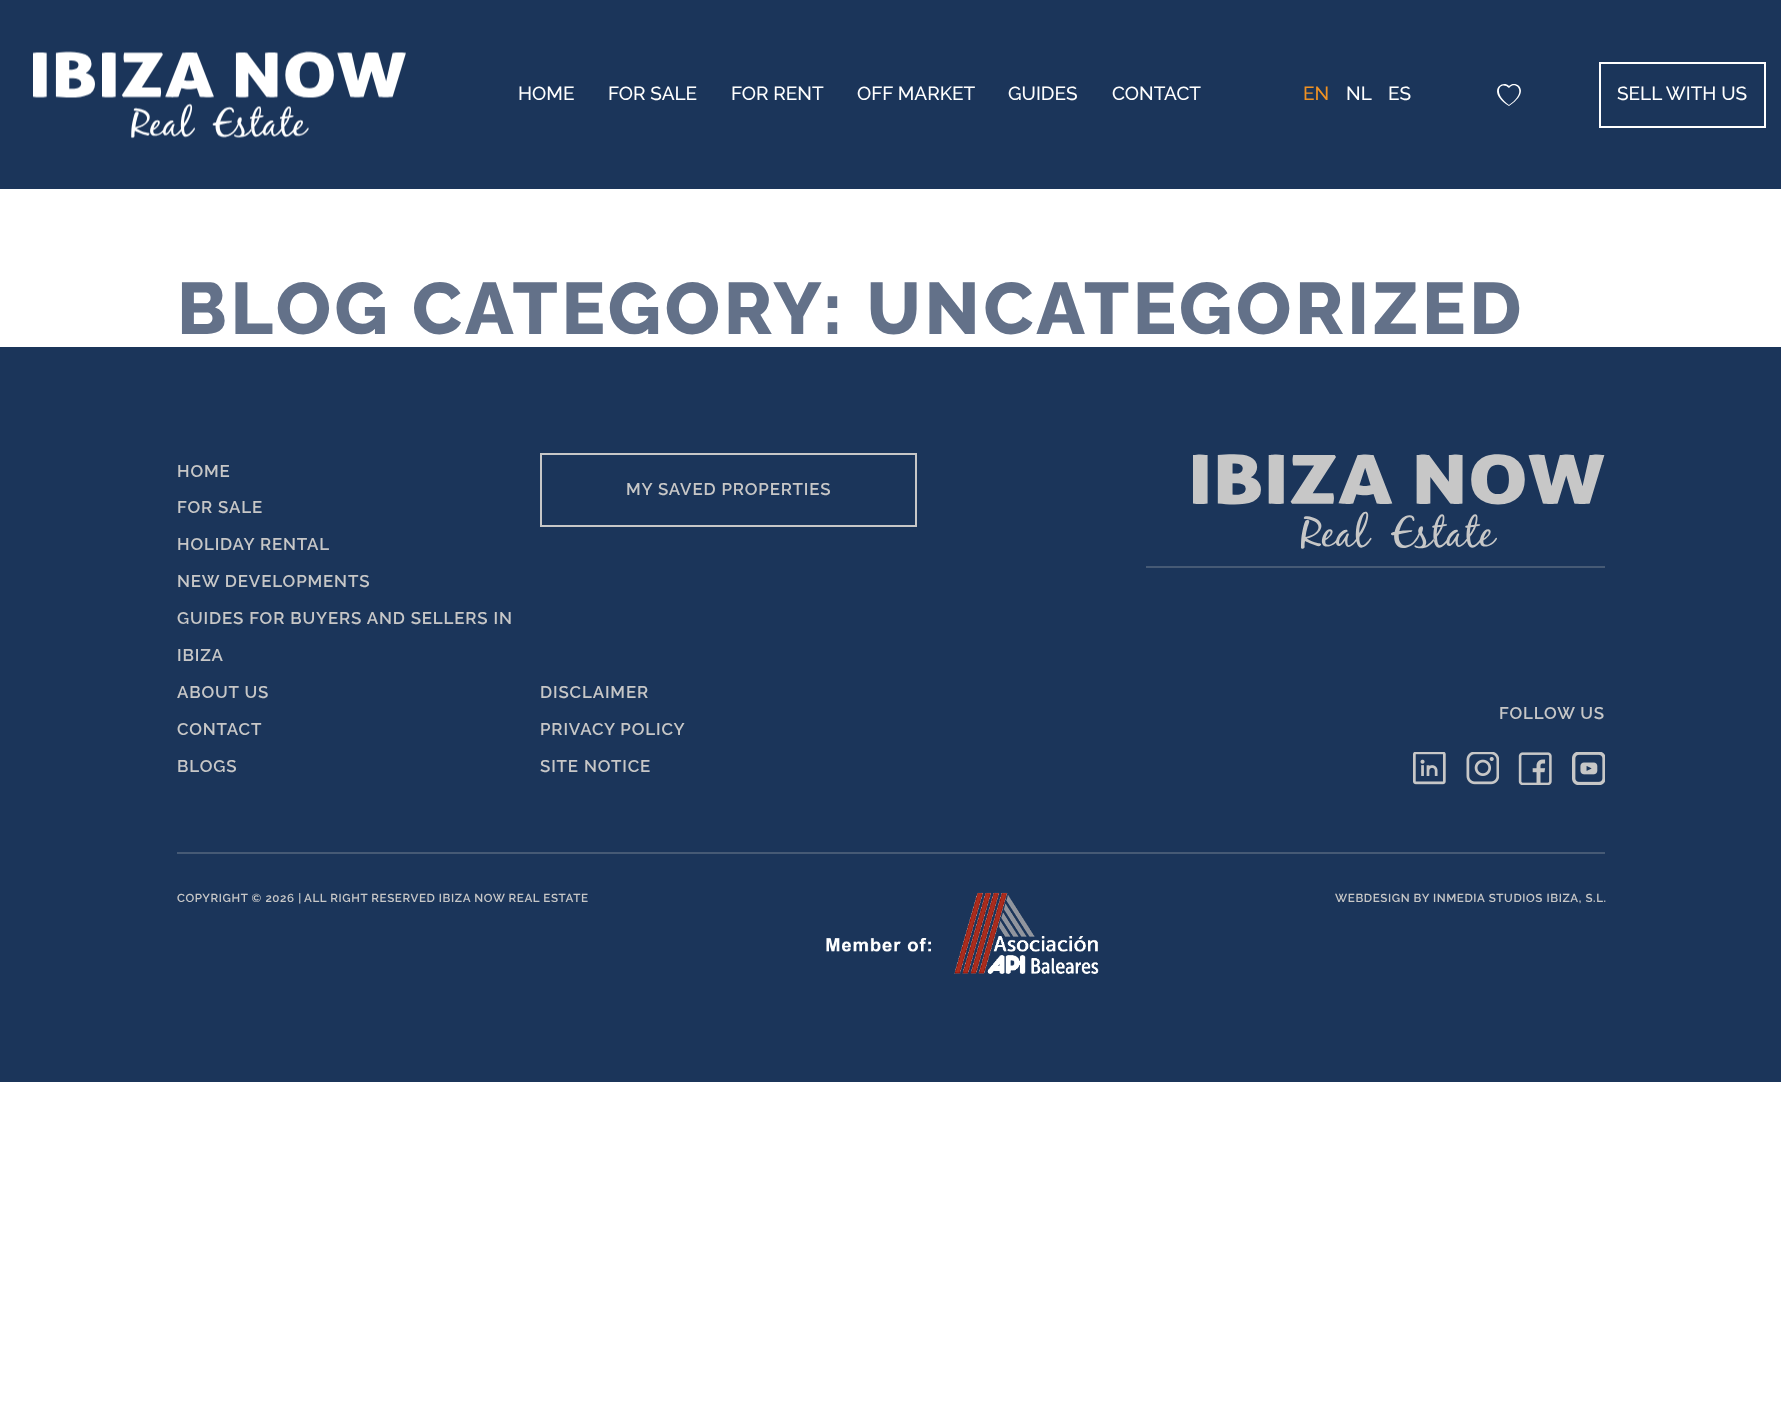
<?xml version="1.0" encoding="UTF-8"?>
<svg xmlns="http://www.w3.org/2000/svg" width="1781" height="1412">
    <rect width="100%" height="100%" fill="#FFFFFF"/>
    <rect x="0" y="0" width="1781" height="189" fill="#1B355A"/>
    <image x="33" y="51" width="373" height="88" href="img_01.png"/>
    <text x="518" y="100" font-family="Raleway" font-size="19" font-weight="500" fill="#FFFFFF">HOME</text>
    <text x="608" y="100" font-family="Raleway" font-size="19" font-weight="500" fill="#FFFFFF">FOR SALE</text>
    <text x="731" y="100" font-family="Raleway" font-size="19" font-weight="500" fill="#FFFFFF">FOR RENT</text>
    <text x="857" y="100" font-family="Raleway" font-size="19" font-weight="500" fill="#FFFFFF">OFF MARKET</text>
    <text x="1008" y="100" font-family="Raleway" font-size="19" font-weight="500" fill="#FFFFFF">GUIDES</text>
    <text x="1112" y="100" font-family="Raleway" font-size="19" font-weight="500" fill="#FFFFFF">CONTACT</text>
    <text x="1303" y="100" font-family="Raleway" font-size="19" font-weight="500" fill="#EF9123">EN</text>
    <text x="1346" y="100" font-family="Raleway" font-size="19" font-weight="500" fill="#FFFFFF">NL</text>
    <text x="1388" y="100" font-family="Raleway" font-size="19" font-weight="500" fill="#FFFFFF">ES</text>
    <path d="M 1509 88 C 1501 80 1491 92 1509 105 C 1528 92 1516 81 1510 87 Z M 1509 106 C 1486 92 1502 79 1509 86 C 1516 79 1532 91 1509 106" fill="#FFFFFF"/>
    <rect x="1600" y="63" width="165" height="64" fill="none" stroke="#FFFFFF" stroke-width="2"/>
    <text x="1617" y="100" font-family="Raleway" font-size="19" font-weight="500" fill="#FFFFFF">SELL WITH US</text>
    <text x="177" y="334" font-family="Raleway" font-size="72.75" font-weight="800" letter-spacing="3.65" fill="#637189">BLOG CATEGORY: UNCATEGORIZED</text>
    <rect x="0" y="347" width="1781" height="735" fill="#1B355A"/>
    <text x="177" y="477" font-family="Raleway" font-size="16.9" font-weight="600" letter-spacing="0.85" fill="#C7C7C7">HOME</text>
    <text x="177" y="513" font-family="Raleway" font-size="16.9" font-weight="600" letter-spacing="0.85" fill="#C7C7C7">FOR SALE</text>
    <text x="177" y="550" font-family="Raleway" font-size="16.9" font-weight="600" letter-spacing="0.85" fill="#C7C7C7">HOLIDAY RENTAL</text>
    <text x="177" y="587" font-family="Raleway" font-size="16.9" font-weight="600" letter-spacing="0.85" fill="#C7C7C7">NEW DEVELOPMENTS</text>
    <text x="177" y="624" font-family="Raleway" font-size="16.9" font-weight="600" letter-spacing="0.85" fill="#C7C7C7">GUIDES FOR BUYERS AND SELLERS IN</text>
    <text x="177" y="661" font-family="Raleway" font-size="16.9" font-weight="600" letter-spacing="0.85" fill="#C7C7C7">IBIZA</text>
    <text x="177" y="698" font-family="Raleway" font-size="16.9" font-weight="600" letter-spacing="0.85" fill="#C7C7C7">ABOUT US</text>
    <text x="177" y="735" font-family="Raleway" font-size="16.9" font-weight="600" letter-spacing="0.85" fill="#C7C7C7">CONTACT</text>
    <text x="177" y="772" font-family="Raleway" font-size="16.9" font-weight="600" letter-spacing="0.85" fill="#C7C7C7">BLOGS</text>
    <rect x="541" y="454" width="375" height="72" fill="none" stroke="#C7C7C7" stroke-width="2"/>
    <text x="626" y="495" font-family="Raleway" font-size="16.9" font-weight="600" letter-spacing="0.85" fill="#C7C7C7">MY SAVED PROPERTIES</text>
    <text x="540" y="698" font-family="Raleway" font-size="16.9" font-weight="600" letter-spacing="0.85" fill="#C7C7C7">DISCLAIMER</text>
    <text x="540" y="735" font-family="Raleway" font-size="16.9" font-weight="600" letter-spacing="0.85" fill="#C7C7C7">PRIVACY POLICY</text>
    <text x="540" y="772" font-family="Raleway" font-size="16.9" font-weight="600" letter-spacing="0.85" fill="#C7C7C7">SITE NOTICE</text>
    <image x="1193" y="454" width="412" height="95" href="img_02.png"/>
    <rect x="1146" y="566" width="459" height="2" fill="#465A75"/>
    <text x="1499" y="719" font-family="Raleway" font-size="16.9" font-weight="600" letter-spacing="0.85" fill="#C7C7C7">FOLLOW US</text>
    <image x="1413" y="752" width="33" height="33" href="img_03.png"/>
    <image x="1466" y="752" width="33" height="33" href="img_04.png"/>
    <image x="1518" y="752" width="34" height="33" href="img_05.png"/>
    <image x="1572" y="752" width="33" height="33" href="img_06.png"/>
    <rect x="177" y="852" width="1428" height="2" fill="#465A75"/>
    <text x="177" y="902" font-family="Raleway" font-size="11.6" font-weight="600" letter-spacing="0.6" fill="#C7C7C7">COPYRIGHT © 2026 |</text>
    <text x="304" y="902" font-family="Raleway" font-size="11.6" font-weight="600" letter-spacing="0.6" fill="#C7C7C7">ALL RIGHT RESERVED IBIZA NOW REAL ESTATE</text>
    <image x="826" y="892" width="273" height="82" href="img_07.png"/>
    <text x="1335" y="902" font-family="Raleway" font-size="11.6" font-weight="600" letter-spacing="0.6" fill="#C7C7C7">WEBDESIGN BY INMEDIA STUDIOS IBIZA, S.L.</text>
</svg>
